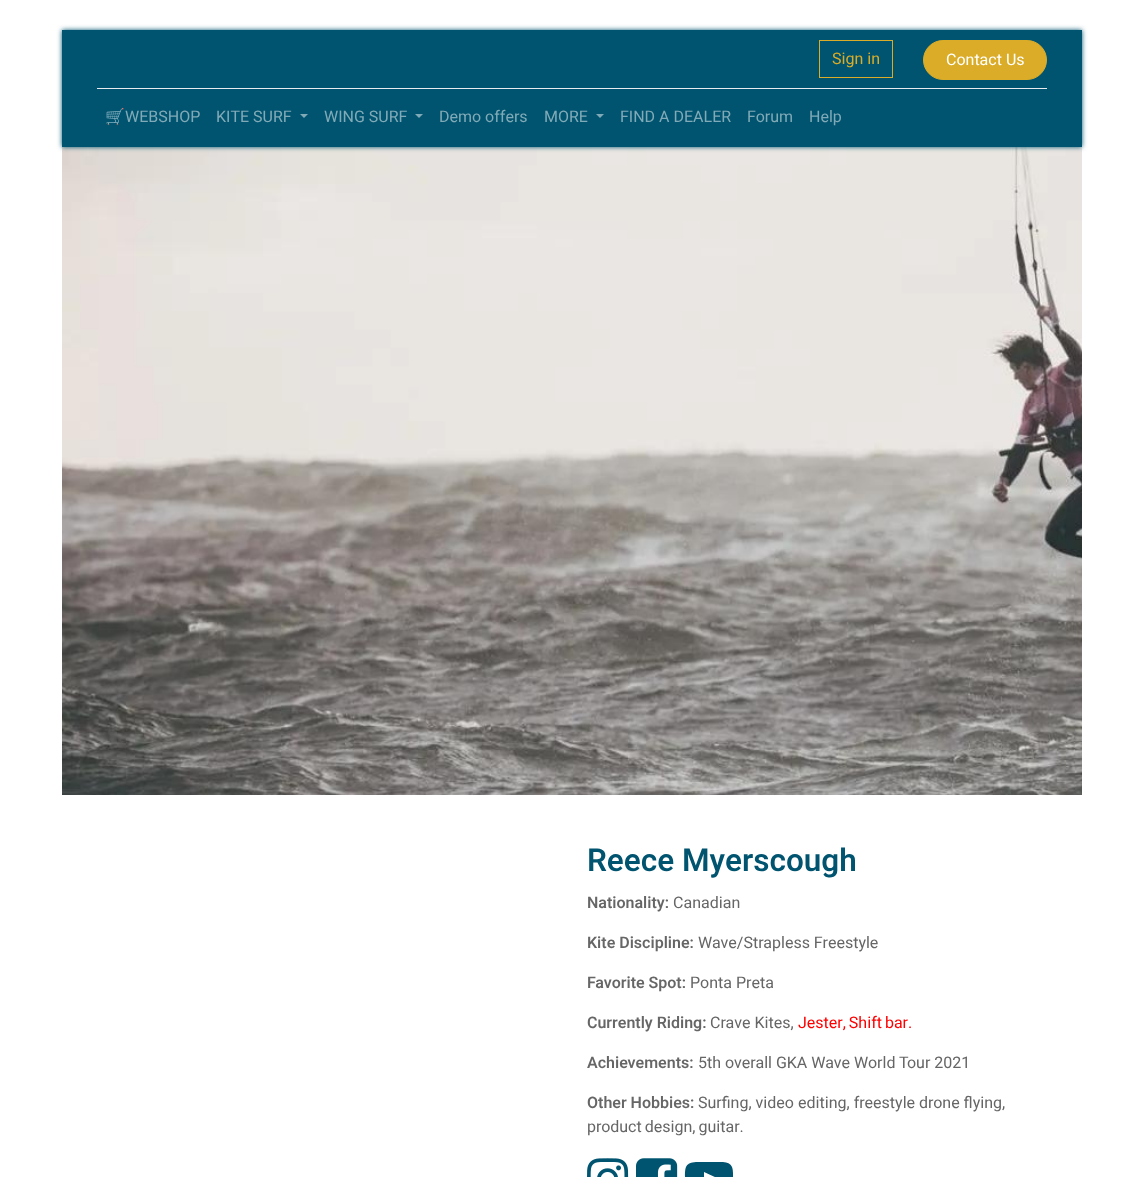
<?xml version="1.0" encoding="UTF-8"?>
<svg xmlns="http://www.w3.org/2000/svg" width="1144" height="1177">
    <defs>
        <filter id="blur1" x="-50%" y="-200%" width="200%" height="500%"><feGaussianBlur stdDeviation="2.5"/></filter>
    </defs>
    <rect width="100%" height="100%" fill="#FFFFFF"/>
    <image x="62" y="147" width="1020" height="648" href="img_01.png"/>
    <rect x="62" y="30" width="1020" height="117" fill="#00546F" filter="url(#blur1)"/>
    <rect x="62" y="30" width="1020" height="117" fill="#00546F"/>
    <rect x="819.5" y="40.5" width="73" height="37" fill="none" stroke="#DBAC27"/>
    <text x="832" y="64" font-family="Heebo" font-size="16" fill="#DBAC27">Sign in</text>
    <rect x="923.5" y="40.5" width="123" height="39" rx="19.5" fill="#DBAC27" stroke="#DBAC27"/>
    <text x="946" y="65" font-family="Heebo" font-size="16" fill="#FFFFFF">Contact Us</text>
    <rect x="97" y="88" width="950" height="1" fill="#E9ECEF"/>
    <text x="105" y="122" font-family="Noto Color Emoji" font-size="16" fill="#80AAB7">🛒</text>
    <text x="125" y="122" font-family="Heebo" font-size="16" fill="#80AAB7">WEBSHOP</text>
    <text x="216" y="122" font-family="Heebo" font-size="16" fill="#80AAB7">KITE SURF</text>
    <path d="M 300 114 H 308 L 304 118 Z" fill="#80AAB7"/>
    <text x="324" y="122" font-family="Heebo" font-size="16" fill="#80AAB7">WING SURF</text>
    <path d="M 415 114 H 423 L 419 118 Z" fill="#80AAB7"/>
    <text x="439" y="122" font-family="Heebo" font-size="16" fill="#80AAB7">Demo offers</text>
    <text x="544" y="122" font-family="Heebo" font-size="16" fill="#80AAB7">MORE</text>
    <path d="M 596 114 H 604 L 600 118 Z" fill="#80AAB7"/>
    <text x="620" y="122" font-family="Heebo" font-size="16" fill="#80AAB7">FIND A DEALER</text>
    <text x="747" y="122" font-family="Heebo" font-size="16" fill="#80AAB7">Forum</text>
    <text x="809" y="122" font-family="Heebo" font-size="16" fill="#80AAB7">Help</text>
    <text x="587" y="871" font-family="Heebo" font-size="31.5" font-weight="600" fill="#00546F">Reece Myerscough</text>
    <text x="587" y="908" font-family="Heebo" font-size="16" font-weight="600" fill="#666666">Nationality:</text>
    <text x="673" y="908" font-family="Heebo" font-size="16" fill="#666666">Canadian</text>
    <text x="587" y="948" font-family="Heebo" font-size="16" font-weight="600" fill="#666666">Kite Discipline:</text>
    <text x="698" y="948" font-family="Heebo" font-size="16" fill="#666666">Wave/Strapless Freestyle</text>
    <text x="587" y="988" font-family="Heebo" font-size="16" font-weight="600" fill="#666666">Favorite Spot:</text>
    <text x="690" y="988" font-family="Heebo" font-size="16" fill="#666666">Ponta Preta</text>
    <text x="587" y="1028" font-family="Heebo" font-size="16" font-weight="600" fill="#666666">Currently Riding:</text>
    <text x="710" y="1028" font-family="Heebo" font-size="16" fill="#666666">Crave Kites,</text>
    <text x="798" y="1028" word-spacing="-1" font-family="Heebo" font-size="16" fill="#FF0000">Jester, Shift bar.</text>
    <text x="587" y="1068" font-family="Heebo" font-size="16" font-weight="600" fill="#666666">Achievements:</text>
    <text x="698" y="1068" font-family="Heebo" font-size="16" fill="#666666">5th overall GKA Wave World Tour 2021</text>
    <text x="587" y="1108" font-family="Heebo" font-size="16" font-weight="600" fill="#666666">Other Hobbies:</text>
    <text x="698" y="1108" font-family="Heebo" font-size="16" fill="#666666">Surfing, video editing, freestyle drone flying,</text>
    <text x="587" y="1132" word-spacing="-1" font-family="Heebo" font-size="16" fill="#666666">product design, guitar.</text>
    <image x="587" y="1158" width="42" height="19" href="img_02.png"/>
    <image x="636" y="1158" width="42" height="19" href="img_03.png"/>
    <path d="M 704 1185 L 717 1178 L 704 1172 Z M 709 1162 H 723 C 734 1163 733 1169 733 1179 C 733 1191 733 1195 722 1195 H 695 C 684 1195 685 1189 685 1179 C 685 1167 685 1163 696 1162 Z" fill="#00546F"/>
</svg>
